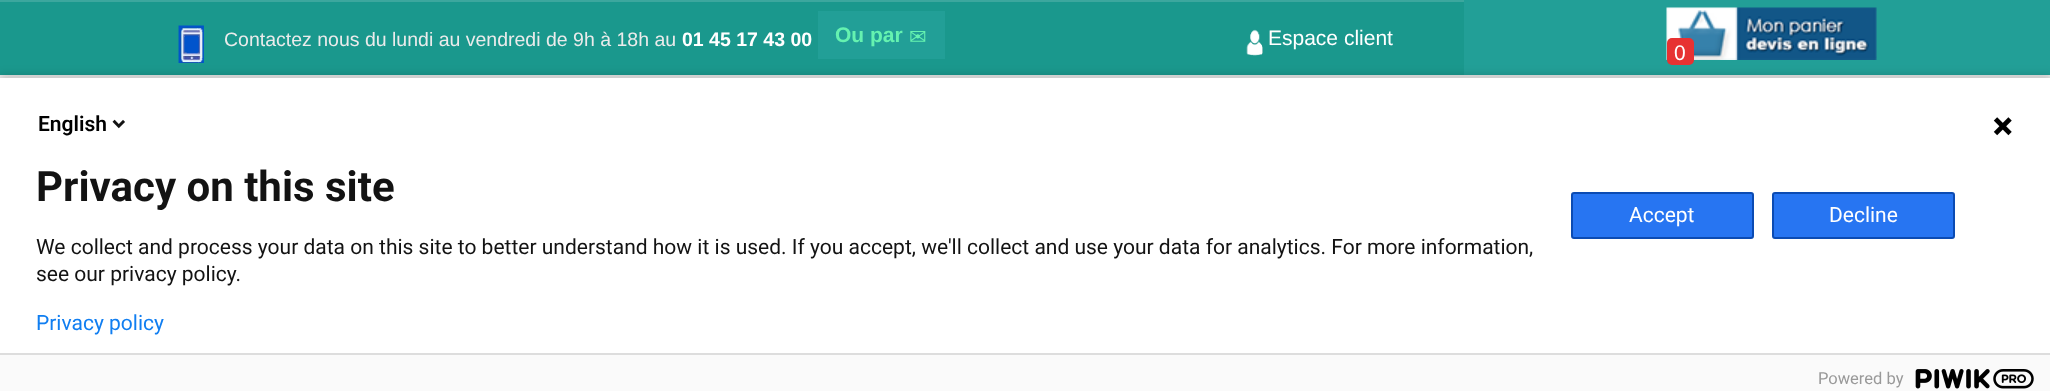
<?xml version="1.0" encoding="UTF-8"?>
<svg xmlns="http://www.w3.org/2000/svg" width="2050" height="391">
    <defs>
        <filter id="blur1" x="-50%" y="-200%" width="200%" height="500%"><feGaussianBlur stdDeviation="4"/></filter>
    </defs>
    <rect width="100%" height="100%" fill="#F0F0F0"/>
    <rect x="0" y="2" width="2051" height="75" fill="#000000" fill-opacity="0.07" filter="url(#blur1)"/>
    <rect x="0" y="2" width="1464" height="73" fill="#1A988D"/>
    <rect x="0" y="0" width="1464" height="2" fill="#3CA79E"/>
    <image x="178" y="25" width="26" height="38" href="img_01.png"/>
    <text x="224" y="46" font-family="Liberation Sans" font-size="19.5" fill="#EBEBEB">Contactez nous du lundi au vendredi de 9h à 18h au</text>
    <text x="682" y="46" font-family="Liberation Sans" font-size="19.5" font-weight="700" fill="#FFFFFF">01 45 17 43 00</text>
    <rect x="818" y="11" width="127" height="48" fill="#229F97"/>
    <text x="835" y="42" font-family="Liberation Sans" font-size="21" font-weight="700" fill="#65F2B0">Ou par</text>
    <text x="909" y="44" font-family="DejaVu Sans" font-size="21" fill="#65F2B0">✉</text>
    <image x="1246" y="29" width="17" height="27" href="img_02.png"/>
    <text x="1268" y="45" font-family="Liberation Sans" font-size="21" fill="#FFFFFF">Espace client</text>
    <rect x="1464" y="0" width="586" height="75" fill="#229F97"/>
    <image x="1666" y="7" width="211" height="53" href="img_03.png"/>
    <rect x="1667" y="38" width="27" height="27" rx="5" fill="#E73232"/>
    <text x="1674" y="60" font-family="Liberation Sans" font-size="21" fill="#FFFFFF">0</text>
    <rect x="-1" y="74" width="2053" height="316" fill="#000000" fill-opacity="0.14" filter="url(#blur1)"/>
    <rect x="0" y="78" width="2050" height="275" fill="#FFFFFF"/>
    <text x="38" y="131" font-family="Roboto" font-size="21" font-weight="600" fill="#000000">English</text>
    <image x="112" y="119" width="13" height="10" href="img_04.png"/>
    <text x="36" y="201" font-family="Roboto" font-size="42" font-weight="700" fill="#131313">Privacy on this site</text>
    <text font-family="Roboto" font-size="21" fill="#131313">
        <tspan x="36" y="254">We collect and process your data on this site to better understand how it is used. If you accept, we'll collect and use your data for analytics. For more information,</tspan>
        <tspan x="36" y="281">see our privacy policy.</tspan>
    </text>
    <text x="36" y="330" font-family="Roboto" font-size="21" fill="#107EF1">Privacy policy</text>
    <image x="1993" y="117" width="19" height="19" href="img_05.png"/>
    <rect x="1572" y="193" width="181" height="45" rx="2" fill="#2775F2" stroke="#0B4BB3" stroke-width="2"/>
    <text x="1629" y="222" font-family="Roboto" font-size="21" fill="#FFFFFF">Accept</text>
    <rect x="1773" y="193" width="181" height="45" rx="2" fill="#2775F2" stroke="#0B4BB3" stroke-width="2"/>
    <text x="1829" y="222" font-family="Roboto" font-size="21" fill="#FFFFFF">Decline</text>
    <rect x="0" y="355" width="2050" height="36" fill="#FAFAFA"/>
    <rect x="0" y="353" width="2050" height="2" fill="#DDDDDD"/>
    <text x="1818" y="384" font-family="Roboto" font-size="16.5" fill="#999999">Powered by</text>
    <image x="1915" y="369" width="119" height="20" href="img_06.png"/>
</svg>
